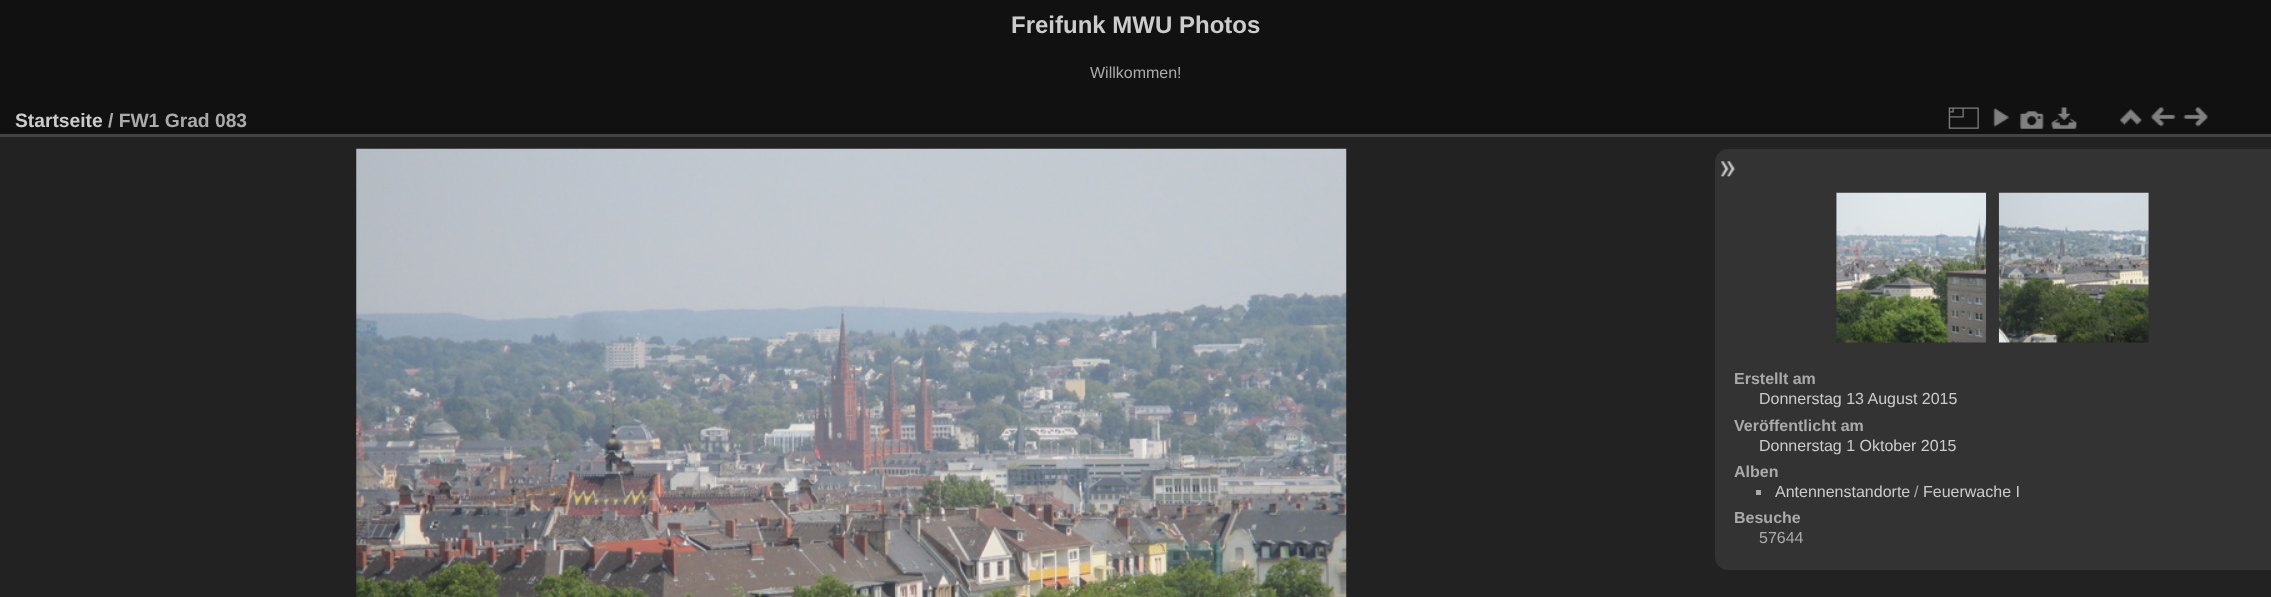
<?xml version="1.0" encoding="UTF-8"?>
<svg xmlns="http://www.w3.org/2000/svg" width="2271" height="597">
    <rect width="100%" height="100%" fill="#111111"/>
    <text x="1011" y="33" font-family="Liberation Sans" font-size="24" font-weight="700" fill="#CCCCCC">Freifunk MWU Photos</text>
    <text x="1090" y="78" font-family="Liberation Sans" font-size="16" fill="#AAAAAA">Willkommen!</text>
    <rect x="0" y="137" width="2271" height="460" fill="#222222"/>
    <rect x="0" y="134" width="2271" height="3" fill="#444444"/>
    <text x="15" y="127" font-family="Liberation Sans" font-size="19.25" font-weight="700" fill="#CCCCCC">Startseite</text>
    <text x="108" y="127" font-family="Liberation Sans" font-size="19.25" font-weight="700" fill="#AAAAAA">/ FW1 Grad 083</text>
    <image x="1948" y="107" width="31" height="22" href="img_01.png"/>
    <image x="1993" y="108" width="16" height="19" href="img_02.png"/>
    <image x="2020" y="111" width="24" height="18" href="img_03.png"/>
    <image x="2051" y="107" width="27" height="22" href="img_04.png"/>
    <image x="2120" y="108" width="22" height="18" href="img_05.png"/>
    <image x="2151" y="107" width="25" height="20" href="img_06.png"/>
    <image x="2183" y="107" width="25" height="20" href="img_07.png"/>
    <image x="356" y="148" width="991" height="449" href="img_08.png"/>
    <path d="M 1728 149 H 2271 V 570 H 1728 C 1721 570 1715 564 1715 557 V 162 C 1715 155 1721 149 1728 149 Z" fill="#333333"/>
    <image x="1720" y="161" width="16" height="16" href="img_09.png"/>
    <image x="1836" y="192" width="151" height="151" href="img_10.png"/>
    <image x="1998" y="192" width="151" height="151" href="img_11.png"/>
    <text x="1734" y="384" font-family="Liberation Sans" font-size="16" font-weight="700" fill="#AAAAAA">Erstellt am</text>
    <text x="1759" y="404" font-family="Liberation Sans" font-size="16" fill="#CCCCCC">Donnerstag 13 August 2015</text>
    <text x="1734" y="431" font-family="Liberation Sans" font-size="16" font-weight="700" fill="#AAAAAA">Veröffentlicht am</text>
    <text x="1759" y="451" font-family="Liberation Sans" font-size="16" fill="#CCCCCC">Donnerstag 1 Oktober 2015</text>
    <text x="1734" y="477" font-family="Liberation Sans" font-size="16" font-weight="700" fill="#AAAAAA">Alben</text>
    <rect x="1756" y="490" width="5" height="5" fill="#AAAAAA"/>
    <text x="1775" y="497" font-family="Liberation Sans" font-size="16" fill="#CCCCCC">Antennenstandorte</text>
    <text x="1914" y="497" font-family="Liberation Sans" font-size="16" fill="#AAAAAA">/</text>
    <text x="1923" y="497" font-family="Liberation Sans" font-size="16" fill="#CCCCCC">Feuerwache I</text>
    <text x="1734" y="523" font-family="Liberation Sans" font-size="16" font-weight="700" fill="#AAAAAA">Besuche</text>
    <text x="1759" y="543" font-family="Liberation Sans" font-size="16" fill="#AAAAAA">57644</text>
</svg>
